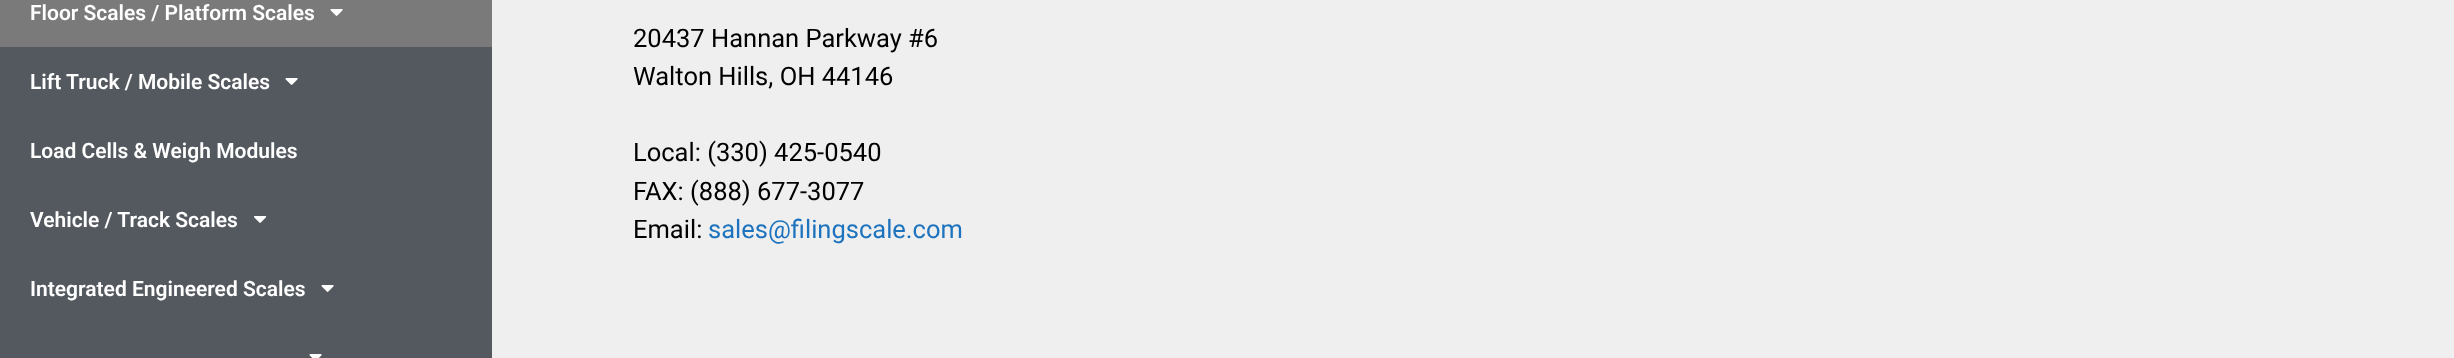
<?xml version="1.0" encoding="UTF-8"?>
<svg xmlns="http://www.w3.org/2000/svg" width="2454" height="358">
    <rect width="100%" height="100%" fill="#EFEFEF"/>
    <rect x="0" y="47" width="492" height="311" fill="#54595F"/>
    <rect x="0" y="0" width="492" height="47" fill="#7A7A7A"/>
    <text x="30" y="20" font-family="Roboto" font-size="21" font-weight="600" fill="#FFFFFF">Floor Scales / Platform Scales</text>
    <image x="330" y="9" width="13" height="7" href="img_01.png"/>
    <text x="30" y="89" font-family="Roboto" font-size="21" font-weight="600" fill="#FFFFFF">Lift Truck / Mobile Scales</text>
    <image x="285" y="78" width="13" height="7" href="img_02.png"/>
    <text x="30" y="158" font-family="Roboto" font-size="21" font-weight="600" fill="#FFFFFF">Load Cells &amp; Weigh Modules</text>
    <text x="30" y="227" font-family="Roboto" font-size="21" font-weight="600" fill="#FFFFFF">Vehicle / Track Scales</text>
    <image x="254" y="216" width="13" height="7" href="img_03.png"/>
    <text x="30" y="296" font-family="Roboto" font-size="21" font-weight="600" fill="#FFFFFF">Integrated Engineered Scales</text>
    <image x="321" y="285" width="13" height="7" href="img_02.png"/>
    <image x="309" y="354" width="13" height="4" href="img_04.png"/>
    <text font-family="Roboto" font-size="25.5" fill="#000000">
        <tspan x="633" y="47">20437 Hannan Parkway #6</tspan>
        <tspan x="633" y="85">Walton Hills, OH 44146</tspan>
    </text>
    <text font-family="Roboto" font-size="25.5" fill="#000000">
        <tspan x="633" y="161">Local: (330) 425-0540</tspan>
        <tspan x="633" y="200">FAX: (888) 677-3077</tspan>
        <tspan x="633" y="238">Email:</tspan>
    </text>
    <text x="708" y="238" font-family="Roboto" font-size="25.5" fill="#1E73BE">sales@filingscale.com</text>
</svg>
